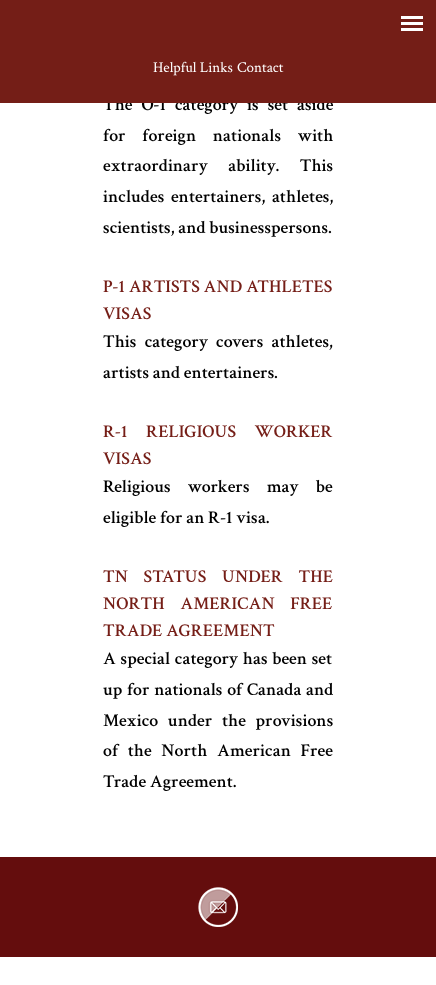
<?xml version="1.0" encoding="UTF-8"?>
<svg xmlns="http://www.w3.org/2000/svg" width="436" height="985">
    <rect width="100%" height="100%" fill="#FFFFFF"/>
    <text x="103" y="110" word-spacing="5.25" font-family="Crimson Text" font-size="18" font-weight="600" fill="#000000">The O-1 category is set aside</text>
    <rect x="0" y="0" width="436" height="103" fill="#741E17"/>
    <rect x="401" y="16" width="22" height="3" fill="#FFFFFF"/>
    <rect x="401" y="22" width="22" height="3" fill="#FFFFFF"/>
    <rect x="401" y="28" width="22" height="3" fill="#FFFFFF"/>
    <text x="153" y="72" font-family="Crimson Text" font-size="15" fill="#FFFFFF">Helpful Links</text>
    <text x="237" y="72" font-family="Crimson Text" font-size="15" fill="#FFFFFF">Contact</text>
    <text font-family="Crimson Text" font-size="18" font-weight="600" fill="#000000">
        <tspan x="103" y="141" word-spacing="13">for foreign nationals with</tspan>
        <tspan x="103" y="171" word-spacing="17">extraordinary ability. This</tspan>
        <tspan x="103" y="202" word-spacing="3">includes entertainers, athletes,</tspan>
        <tspan x="103" y="233">scientists, and businesspersons.</tspan>
    </text>
    <text font-family="Crimson Text" font-size="18" font-weight="600" fill="#751E17">
        <tspan x="103" y="292">P-1 ARTISTS AND ATHLETES</tspan>
        <tspan x="103" y="319">VISAS</tspan>
    </text>
    <text font-family="Crimson Text" font-size="18" font-weight="600" fill="#000000">
        <tspan x="103" y="347" word-spacing="4.5">This category covers athletes,</tspan>
        <tspan x="103" y="378">artists and entertainers.</tspan>
    </text>
    <text font-family="Crimson Text" font-size="18" font-weight="600" fill="#751E17">
        <tspan x="103" y="437" word-spacing="15">R-1 RELIGIOUS WORKER</tspan>
        <tspan x="103" y="464">VISAS</tspan>
    </text>
    <text font-family="Crimson Text" font-size="18" font-weight="600" fill="#000000">
        <tspan x="103" y="492" word-spacing="13.5">Religious workers may be</tspan>
        <tspan x="103" y="523">eligible for an R-1 visa.</tspan>
    </text>
    <text font-family="Crimson Text" font-size="18" font-weight="600" fill="#751E17">
        <tspan x="103" y="582" word-spacing="12">TN STATUS UNDER THE</tspan>
        <tspan x="103" y="609" word-spacing="12">NORTH AMERICAN FREE</tspan>
        <tspan x="103" y="636">TRADE AGREEMENT</tspan>
    </text>
    <text font-family="Crimson Text" font-size="18" font-weight="600" fill="#000000">
        <tspan x="103" y="664" word-spacing="1">A special category has been set</tspan>
        <tspan x="103" y="695" word-spacing="1">up for nationals of Canada and</tspan>
        <tspan x="103" y="726" word-spacing="6">Mexico under the provisions</tspan>
        <tspan x="103" y="756" word-spacing="6">of the North American Free</tspan>
        <tspan x="103" y="787">Trade Agreement.</tspan>
    </text>
    <rect x="0" y="857" width="436" height="100" fill="#640D0D"/>
    <image x="198" y="887" width="40" height="40" href="img_01.png"/>
</svg>
